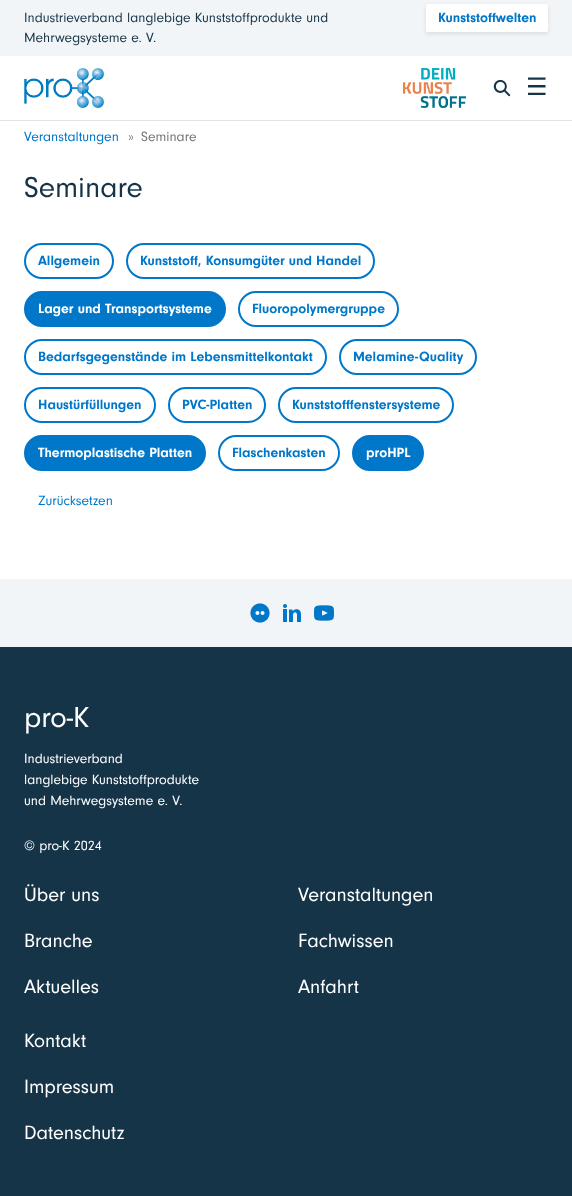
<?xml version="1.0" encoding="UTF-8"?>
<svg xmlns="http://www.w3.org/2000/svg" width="572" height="1196">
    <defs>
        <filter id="blur1" x="-50%" y="-200%" width="200%" height="500%"><feGaussianBlur stdDeviation="2"/></filter>
    </defs>
    <rect width="100%" height="100%" fill="#FFFFFF"/>
    <rect x="0" y="120" width="572" height="1" fill="#E1E4E5"/>
    <rect x="0" y="0" width="572" height="56" fill="#F2F5F7"/>
    <text font-family="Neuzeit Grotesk" font-size="14" fill="#163448">
        <tspan x="24" y="22">Industrieverband langlebige Kunststoffprodukte und</tspan>
        <tspan x="24" y="42">Mehrwegsysteme e. V.</tspan>
    </text>
    <rect x="426" y="6" width="122" height="28" rx="2" fill="#000000" fill-opacity="0.1" filter="url(#blur1)"/>
    <rect x="426" y="4" width="122" height="28" rx="2" fill="#FFFFFF"/>
    <text x="438" y="22" font-family="Neuzeit Grotesk" font-size="14" font-weight="700" fill="#0077C8">Kunststoffwelten</text>
    <image x="24" y="68" width="80" height="40" href="img_01.png"/>
    <image x="403" y="68" width="63" height="40" href="img_02.png"/>
    <image x="493" y="79" width="18" height="18" href="img_03.png"/>
    <text x="526" y="95" font-family="DejaVu Sans" font-size="24" fill="#163448">☰</text>
    <text x="24" y="141" font-family="Neuzeit Grotesk" font-size="14" fill="#0077C8">Veranstaltungen</text>
    <text x="128" y="141" font-family="Neuzeit Grotesk" font-size="14" fill="#727577">»</text>
    <text x="141" y="141" font-family="Neuzeit Grotesk" font-size="14" fill="#727577">Seminare</text>
    <text x="24" y="197" font-family="Neuzeit Grotesk" font-size="30" fill="#163448">Seminare</text>
    <rect x="25" y="244" width="88" height="34" rx="17" fill="none" stroke="#0077C8" stroke-width="2"/>
    <text x="38" y="265" font-family="Neuzeit Grotesk" font-size="14" font-weight="700" fill="#0077C8">Allgemein</text>
    <rect x="127" y="244" width="247" height="34" rx="17" fill="none" stroke="#0077C8" stroke-width="2"/>
    <text x="140" y="265" font-family="Neuzeit Grotesk" font-size="14" font-weight="700" fill="#0077C8">Kunststoff, Konsumgüter und Handel</text>
    <rect x="25" y="292" width="200" height="34" rx="17" fill="#0077C8" stroke="#0077C8" stroke-width="2"/>
    <text x="38" y="313" font-family="Neuzeit Grotesk" font-size="14" font-weight="700" fill="#FFFFFF">Lager und Transportsysteme</text>
    <rect x="239" y="292" width="159" height="34" rx="17" fill="none" stroke="#0077C8" stroke-width="2"/>
    <text x="252" y="313" font-family="Neuzeit Grotesk" font-size="14" font-weight="700" fill="#0077C8">Fluoropolymergruppe</text>
    <rect x="25" y="340" width="301" height="34" rx="17" fill="none" stroke="#0077C8" stroke-width="2"/>
    <text x="38" y="361" font-family="Neuzeit Grotesk" font-size="14" font-weight="700" fill="#0077C8">Bedarfsgegenstände im Lebensmittelkontakt</text>
    <rect x="340" y="340" width="136" height="34" rx="17" fill="none" stroke="#0077C8" stroke-width="2"/>
    <text x="353" y="361" font-family="Neuzeit Grotesk" font-size="14" font-weight="700" fill="#0077C8">Melamine-Quality</text>
    <rect x="25" y="388" width="130" height="34" rx="17" fill="none" stroke="#0077C8" stroke-width="2"/>
    <text x="38" y="409" font-family="Neuzeit Grotesk" font-size="14" font-weight="700" fill="#0077C8">Haustürfüllungen</text>
    <rect x="169" y="388" width="96" height="34" rx="17" fill="none" stroke="#0077C8" stroke-width="2"/>
    <text x="182" y="409" font-family="Neuzeit Grotesk" font-size="14" font-weight="700" fill="#0077C8">PVC-Platten</text>
    <rect x="279" y="388" width="174" height="34" rx="17" fill="none" stroke="#0077C8" stroke-width="2"/>
    <text x="292" y="409" font-family="Neuzeit Grotesk" font-size="14" font-weight="700" fill="#0077C8">Kunststofffenstersysteme</text>
    <rect x="25" y="436" width="180" height="34" rx="17" fill="#0077C8" stroke="#0077C8" stroke-width="2"/>
    <text x="38" y="457" font-family="Neuzeit Grotesk" font-size="14" font-weight="700" fill="#FFFFFF">Thermoplastische Platten</text>
    <rect x="219" y="436" width="120" height="34" rx="17" fill="none" stroke="#0077C8" stroke-width="2"/>
    <text x="232" y="457" font-family="Neuzeit Grotesk" font-size="14" font-weight="700" fill="#0077C8">Flaschenkasten</text>
    <rect x="353" y="436" width="70" height="34" rx="17" fill="#0077C8" stroke="#0077C8" stroke-width="2"/>
    <text x="366" y="457" font-family="Neuzeit Grotesk" font-size="14" font-weight="700" fill="#FFFFFF">proHPL</text>
    <text x="38" y="505" font-family="Neuzeit Grotesk" font-size="14" fill="#0077C8">Zurücksetzen</text>
    <rect x="0" y="579" width="572" height="68" fill="#F2F5F7"/>
    <image x="250" y="603" width="20" height="20" href="img_04.png"/>
    <image x="283" y="604" width="18" height="18" href="img_05.png"/>
    <image x="314" y="605" width="20" height="16" href="img_06.png"/>
    <rect x="0" y="647" width="572" height="549" fill="#163448"/>
    <text x="24" y="727" font-family="Neuzeit Grotesk" font-size="30" fill="#FFFFFF">pro-K</text>
    <text font-family="Neuzeit Grotesk" font-size="14" fill="#FFFFFF">
        <tspan x="24" y="763">Industrieverband</tspan>
        <tspan x="24" y="784">langlebige Kunststoffprodukte</tspan>
        <tspan x="24" y="805">und Mehrwegsysteme e. V.</tspan>
    </text>
    <text x="24" y="850" font-family="Neuzeit Grotesk" font-size="14" fill="#FFFFFF">© pro-K 2024</text>
    <text x="24" y="901" font-family="Neuzeit Grotesk" font-size="20" fill="#FFFFFF">Über uns</text>
    <text x="24" y="947" font-family="Neuzeit Grotesk" font-size="20" fill="#FFFFFF">Branche</text>
    <text x="24" y="993" font-family="Neuzeit Grotesk" font-size="20" fill="#FFFFFF">Aktuelles</text>
    <text x="298" y="901" font-family="Neuzeit Grotesk" font-size="20" fill="#FFFFFF">Veranstaltungen</text>
    <text x="298" y="947" font-family="Neuzeit Grotesk" font-size="20" fill="#FFFFFF">Fachwissen</text>
    <text x="298" y="993" font-family="Neuzeit Grotesk" font-size="20" fill="#FFFFFF">Anfahrt</text>
    <text x="24" y="1047" font-family="Neuzeit Grotesk" font-size="20" fill="#FFFFFF">Kontakt</text>
    <text x="24" y="1093" font-family="Neuzeit Grotesk" font-size="20" fill="#FFFFFF">Impressum</text>
    <text x="24" y="1139" font-family="Neuzeit Grotesk" font-size="20" fill="#FFFFFF">Datenschutz</text>
</svg>
